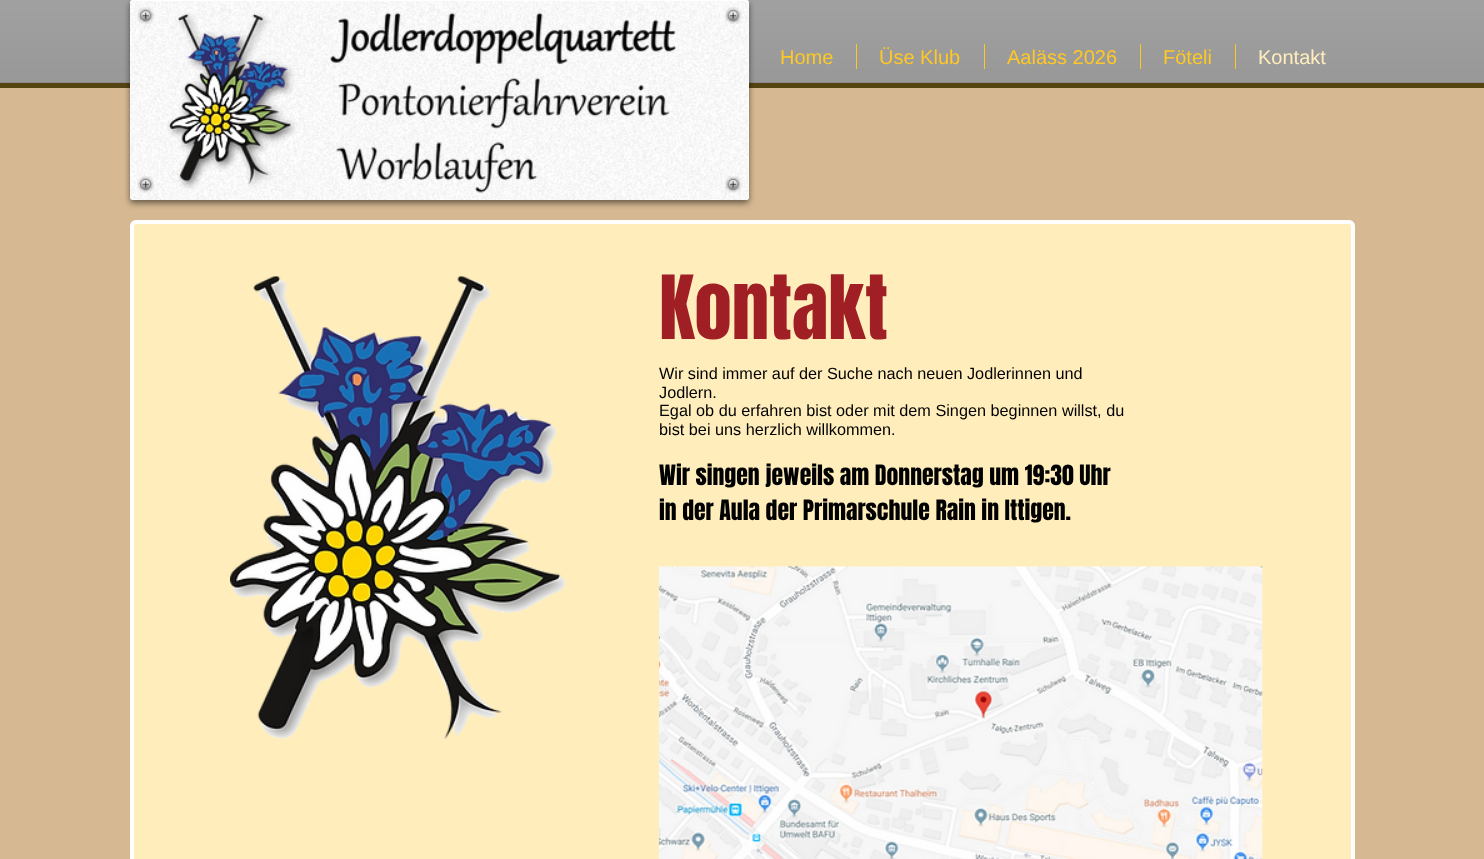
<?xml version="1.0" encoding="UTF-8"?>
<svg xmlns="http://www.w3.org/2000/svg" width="1484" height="859">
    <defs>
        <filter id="blur1" x="-50%" y="-200%" width="200%" height="500%"><feGaussianBlur stdDeviation="3"/></filter>
    </defs>
    <rect width="100%" height="100%" fill="#D6B993"/>
    <rect x="0" y="0" width="1484" height="83" fill="#808080"/>
    <rect x="0" y="83" width="1484" height="5" fill="#554412"/>
    <image x="0" y="0" width="1484" height="83" href="img_08.png"/>
    <rect x="130" y="3" width="619" height="200" rx="2.5" fill="#000000" fill-opacity="0.53" filter="url(#blur1)"/>
    <rect x="130" y="0" width="619" height="200" rx="2.5" fill="#FFFFFF"/>
    <image x="130" y="0" width="619" height="200" href="img_01.png"/>
    <path d="M 132 1 H 746 C 748 1 749 2 749 4 V 2 C 749 1 748 0 746 0 H 132 C 131 0 130 1 130 2 V 4 C 130 2 131 1 132 1 Z" fill="#FFFFFF" fill-opacity="0.92"/>
    <image x="137" y="7" width="17" height="17" href="img_02.png"/>
    <image x="167" y="13" width="130" height="176" href="img_03.png"/>
    <image x="330" y="12" width="347" height="181" href="img_04.png"/>
    <image x="725" y="7" width="17" height="17" href="img_05.png"/>
    <image x="137" y="176" width="17" height="17" href="img_06.png"/>
    <image x="725" y="176" width="17" height="17" href="img_07.png"/>
    <text x="780" y="64" font-family="Liberation Sans" font-size="20" fill="#FFC824">Home</text>
    <rect x="856" y="44" width="1" height="25" fill="#FFC824"/>
    <text x="879" y="64" font-family="Liberation Sans" font-size="20" fill="#FFC824">Üse Klub</text>
    <rect x="984" y="44" width="1" height="25" fill="#FFC824"/>
    <text x="1007" y="64" font-family="Liberation Sans" font-size="20" fill="#FFC824">Aaläss 2026</text>
    <rect x="1140" y="44" width="1" height="25" fill="#FFC824"/>
    <text x="1163" y="64" font-family="Liberation Sans" font-size="20" fill="#FFC824">Föteli</text>
    <rect x="1235" y="44" width="1" height="25" fill="#FFC824"/>
    <text x="1258" y="64" font-family="Liberation Sans" font-size="20" fill="#FFEEBC">Kontakt</text>
    <rect x="132" y="222" width="1221" height="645" rx="4" fill="#FFEEBC" stroke="#FFFFFF" stroke-width="4"/>
    <image x="230" y="276" width="336" height="463" href="img_09.png"/>
    <text x="659" y="339" font-family="Anton" font-size="75" fill="#A01F24">Kontakt</text>
    <text font-family="Liberation Sans" font-size="16.25" fill="#000000">
        <tspan x="659" y="379">Wir sind immer auf der Suche nach neuen Jodlerinnen und</tspan>
        <tspan x="659" y="398">Jodlern.</tspan>
        <tspan x="659" y="416">Egal ob du erfahren bist oder mit dem Singen beginnen willst, du</tspan>
        <tspan x="659" y="435">bist bei uns herzlich willkommen.</tspan>
    </text>
    <text font-family="Anton" font-size="23.75" fill="#000000">
        <tspan x="659" y="485">Wir singen jeweils am Donnerstag um 19:30 Uhr</tspan>
        <tspan x="659" y="520">in der Aula der Primarschule Rain in Ittigen.</tspan>
    </text>
    <image x="658" y="566" width="605" height="293" href="img_10.png"/>
</svg>
